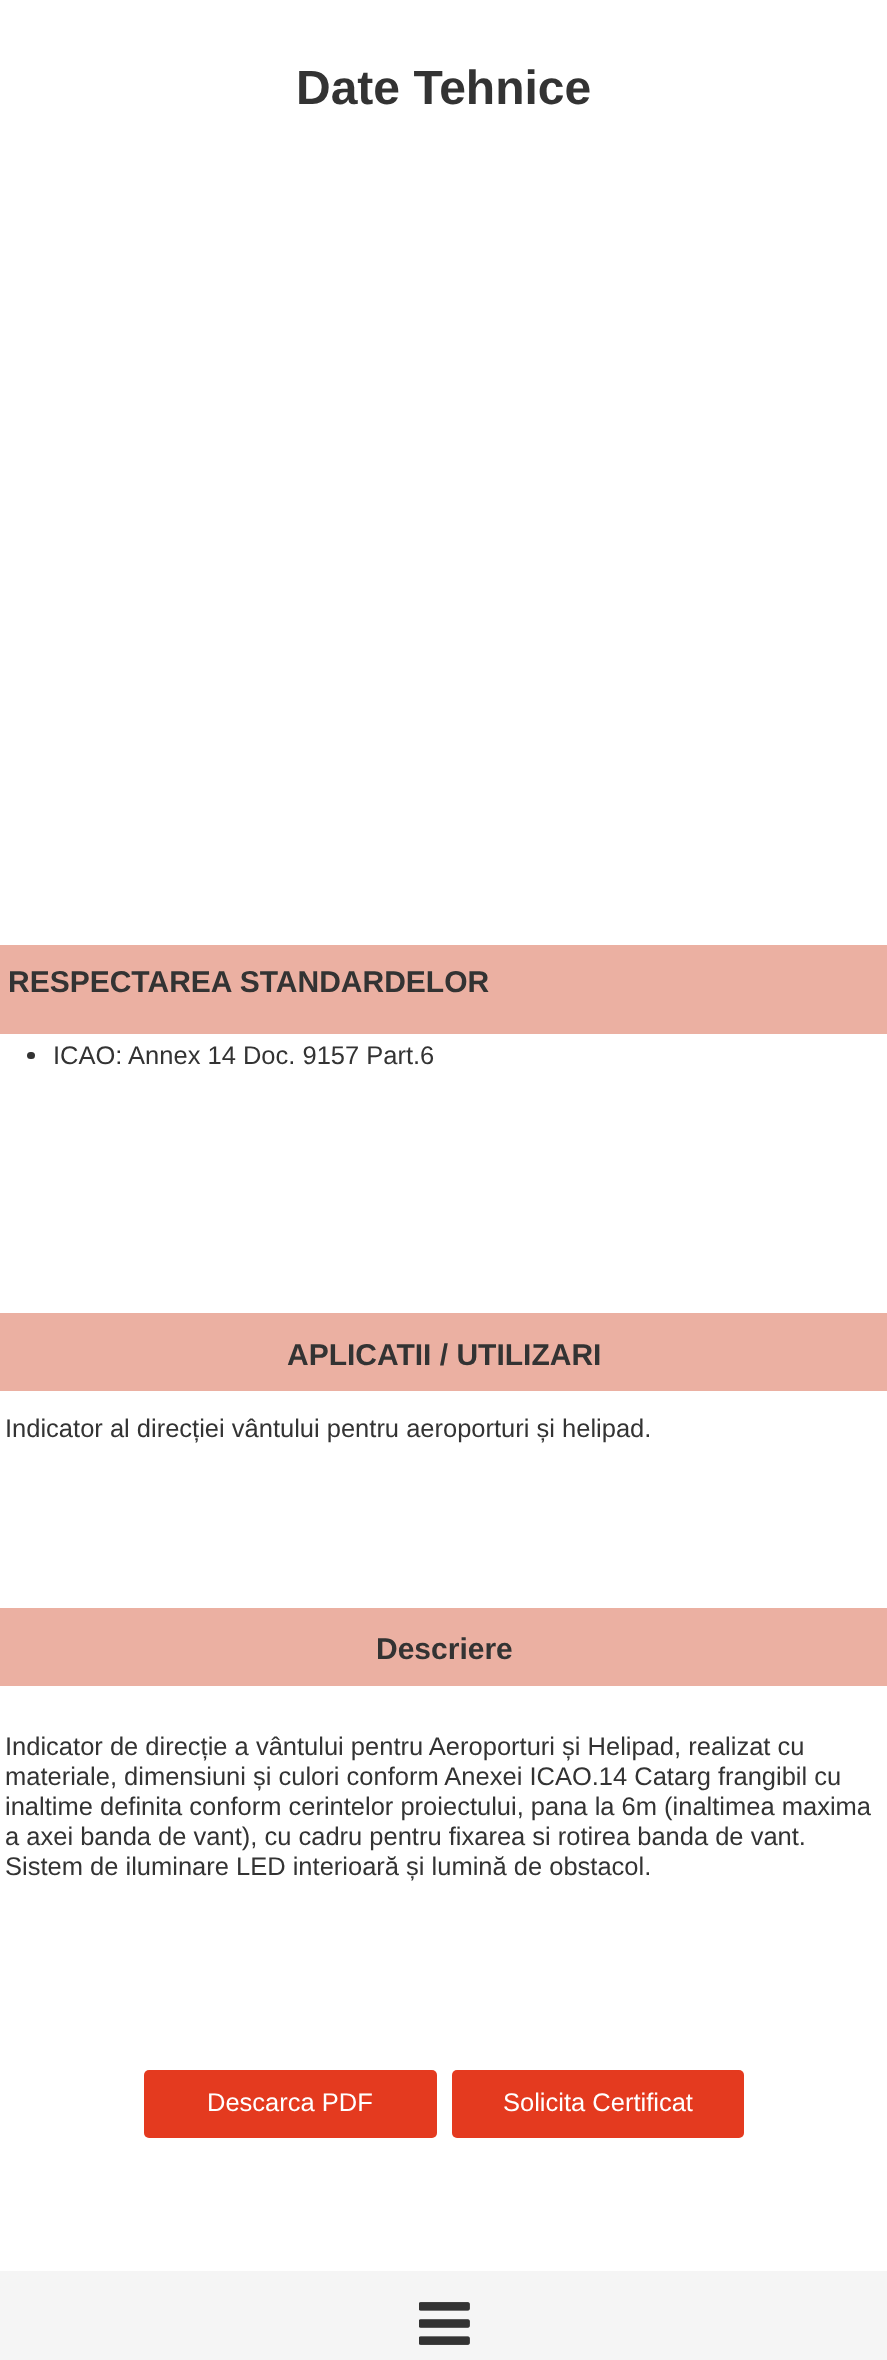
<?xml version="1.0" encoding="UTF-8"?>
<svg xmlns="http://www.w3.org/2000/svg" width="887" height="2360">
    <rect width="100%" height="100%" fill="#FFFFFF"/>
    <text x="296" y="104" font-family="Liberation Sans" font-size="48" font-weight="700" fill="#333333">Date Tehnice</text>
    <rect x="0" y="945" width="887" height="89" fill="#EBB0A2"/>
    <text x="8" y="992" font-family="Liberation Sans" font-size="30" font-weight="700" fill="#333333">RESPECTAREA STANDARDELOR</text>
    <rect x="27" y="1052" width="8" height="7" rx="3.5" fill="#333333"/>
    <text x="53" y="1064" font-family="Liberation Sans" font-size="25.5" fill="#333333">ICAO: Annex 14 Doc. 9157 Part.6</text>
    <rect x="0" y="1313" width="887" height="78" fill="#EBB0A2"/>
    <text x="287" y="1365" font-family="Liberation Sans" font-size="30" font-weight="700" fill="#333333">APLICATII / UTILIZARI</text>
    <text x="5" y="1437" font-family="Liberation Sans" font-size="25.5" fill="#333333">Indicator al direcției vântului pentru aeroporturi și helipad.</text>
    <rect x="0" y="1608" width="887" height="78" fill="#EBB0A2"/>
    <text x="376" y="1659" font-family="Liberation Sans" font-size="30" font-weight="700" fill="#333333">Descriere</text>
    <text font-family="Liberation Sans" font-size="25.5" fill="#333333">
        <tspan x="5" y="1755">Indicator de direcție a vântului pentru Aeroporturi și Helipad, realizat cu</tspan>
        <tspan x="5" y="1785">materiale, dimensiuni și culori conform Anexei ICAO.14 Catarg frangibil cu</tspan>
        <tspan x="5" y="1815">inaltime definita conform cerintelor proiectului, pana la 6m (inaltimea maxima</tspan>
        <tspan x="5" y="1845">a axei banda de vant), cu cadru pentru fixarea si rotirea banda de vant.</tspan>
        <tspan x="5" y="1875">Sistem de iluminare LED interioară și lumină de obstacol.</tspan>
    </text>
    <rect x="144" y="2070" width="293" height="68" rx="5" fill="#E43A1F"/>
    <text x="207" y="2111" font-family="Liberation Sans" font-size="25.5" fill="#FFFFFF">Descarca PDF</text>
    <rect x="452" y="2070" width="292" height="68" rx="5" fill="#E43A1F"/>
    <text x="503" y="2111" font-family="Liberation Sans" font-size="25.5" fill="#FFFFFF">Solicita Certificat</text>
    <rect x="0" y="2271" width="887" height="89" fill="#F5F5F5"/>
    <image x="419" y="2302" width="51" height="43" href="img_01.png"/>
</svg>
